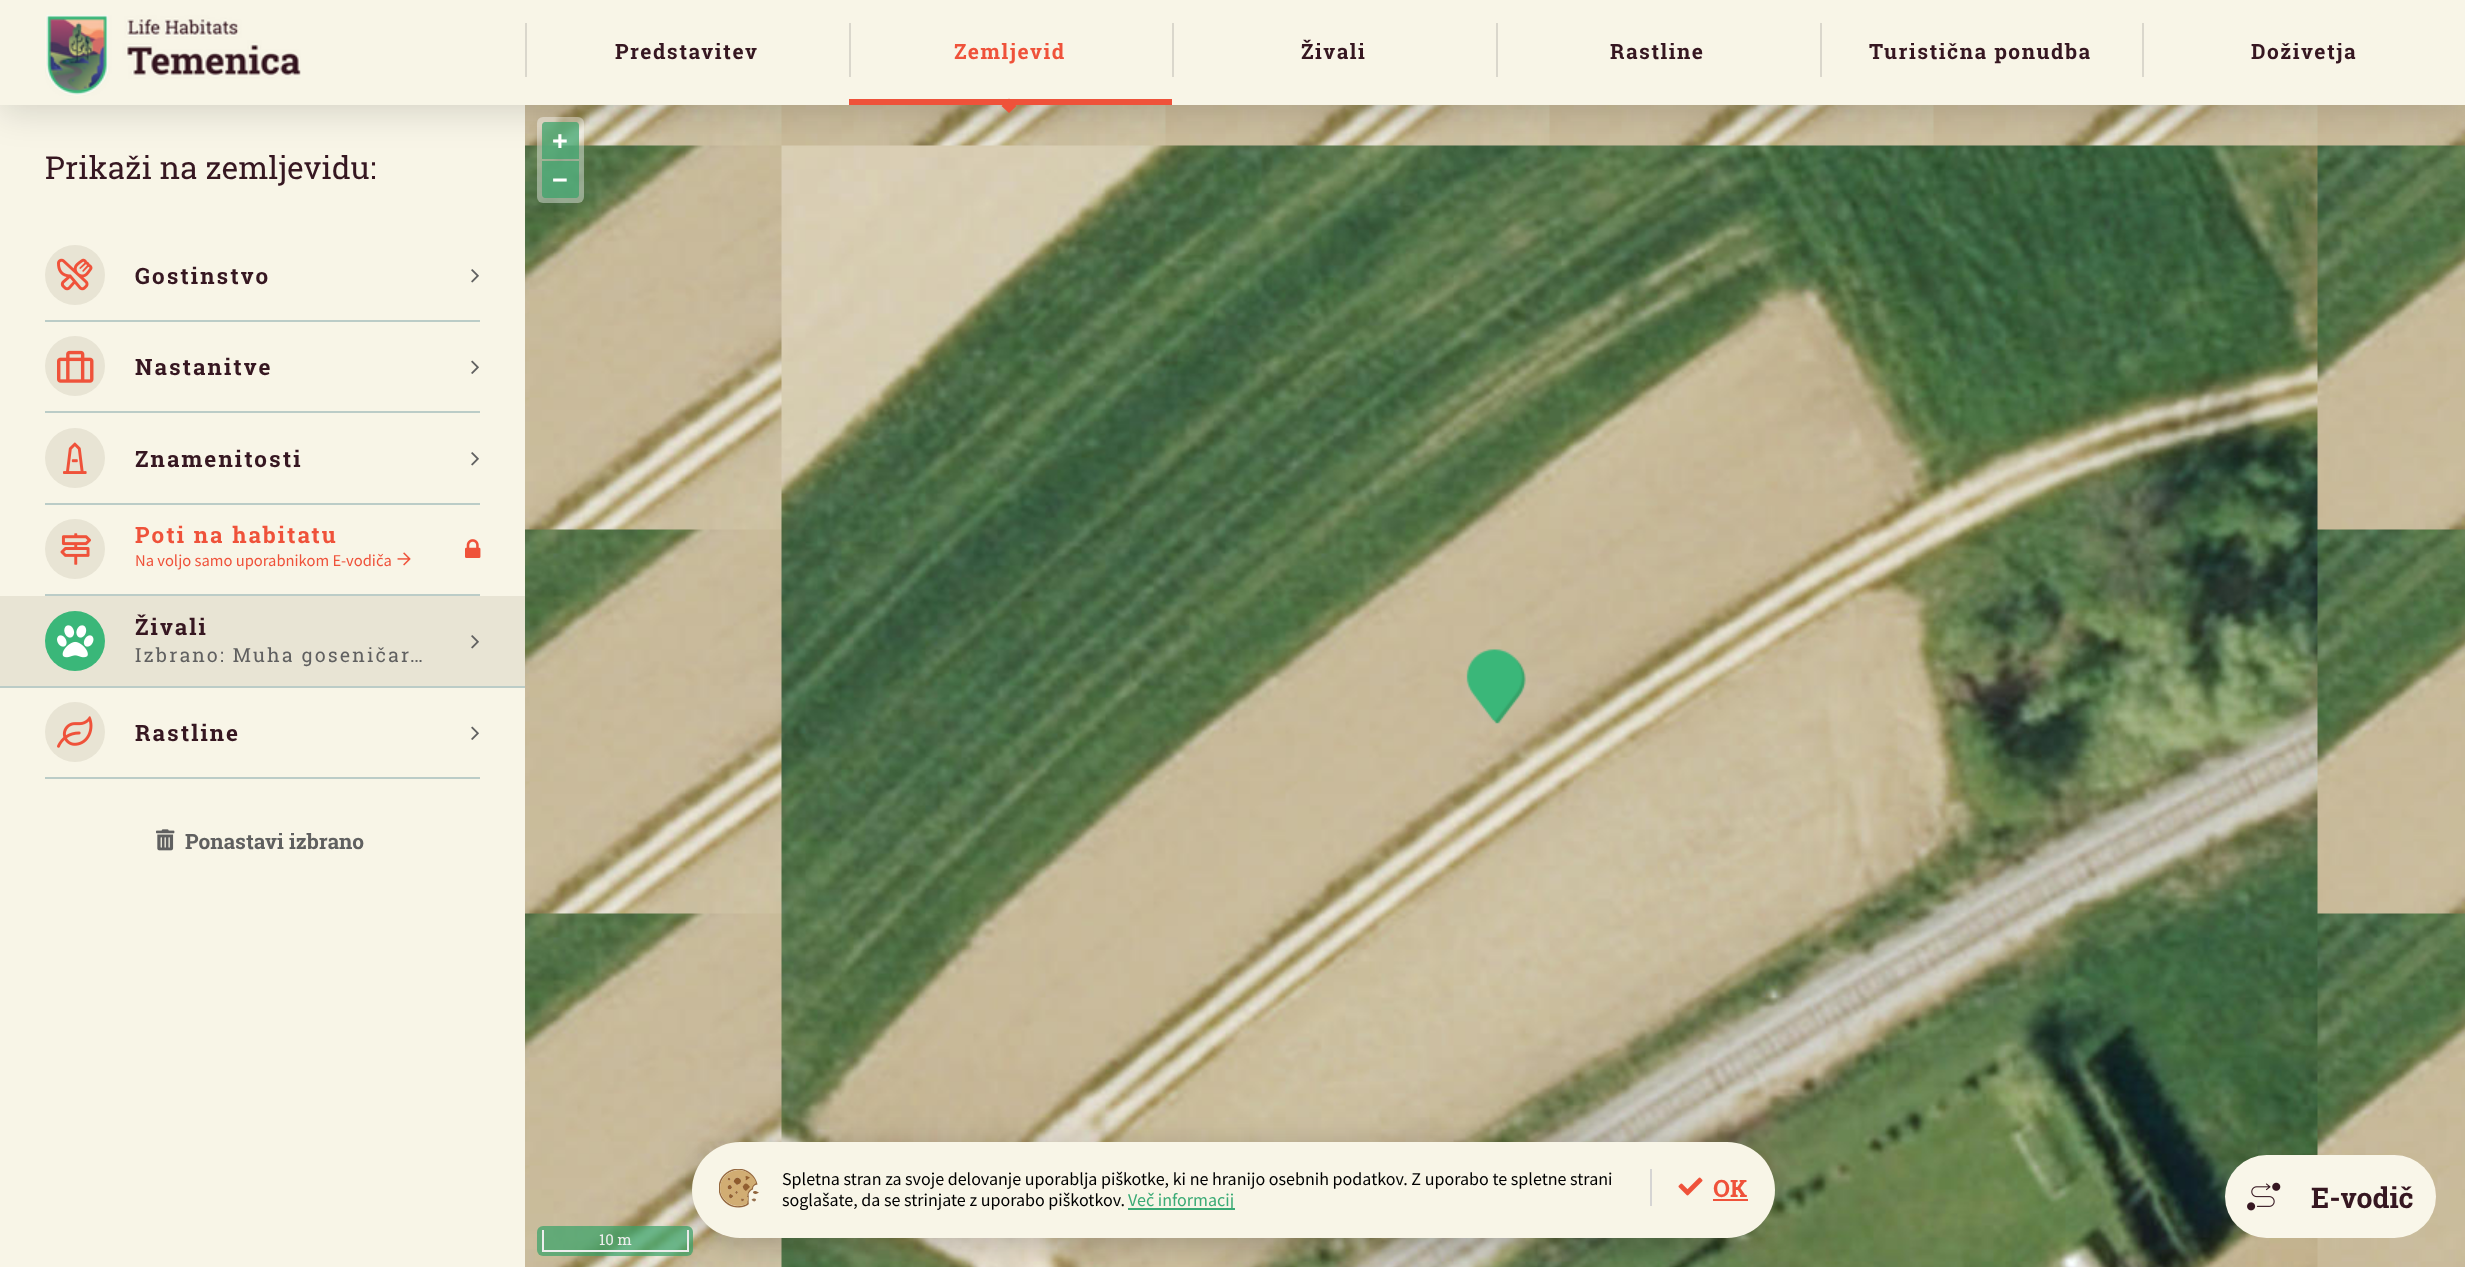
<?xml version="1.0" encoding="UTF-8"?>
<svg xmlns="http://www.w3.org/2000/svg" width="2465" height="1267">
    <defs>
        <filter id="blur1" x="-50%" y="-200%" width="200%" height="500%"><feGaussianBlur stdDeviation="18"/></filter>
        <filter id="blur2" x="-50%" y="-200%" width="200%" height="500%"><feGaussianBlur stdDeviation="15"/></filter>
    </defs>
    <rect width="100%" height="100%" fill="#F8F5E7"/>
    <image x="525" y="105" width="1940" height="1162" href="img_14.png"/>
    <rect x="0" y="6" width="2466" height="105" fill="#000000" fill-opacity="0.15" filter="url(#blur1)"/>
    <rect x="0" y="0" width="2465" height="105" fill="#F8F5E7"/>
    <image x="45" y="15" width="256" height="81" href="img_01.png"/>
    <rect x="525" y="23" width="2" height="54" fill="#DAD7CC"/>
    <text x="615" y="59" font-family="Roboto Slab" font-size="21" font-weight="700" letter-spacing="1.5" fill="#361721">Predstavitev</text>
    <rect x="849" y="23" width="2" height="54" fill="#DAD7CC"/>
    <rect x="849" y="99" width="323" height="6" fill="#EF523A"/>
    <text x="954" y="59" font-family="Roboto Slab" font-size="21" font-weight="700" letter-spacing="1.5" fill="#EF523A">Zemljevid</text>
    <path d="M 1009 98.5 L 1016.5 106 L 1009 113 L 1001.5 106 Z" fill="#EF523A"/>
    <rect x="1172" y="23" width="2" height="54" fill="#DAD7CC"/>
    <text x="1301" y="59" font-family="Roboto Slab" font-size="21" font-weight="700" letter-spacing="1.5" fill="#361721">Živali</text>
    <rect x="1496" y="23" width="2" height="54" fill="#DAD7CC"/>
    <text x="1610" y="59" font-family="Roboto Slab" font-size="21" font-weight="700" letter-spacing="1.5" fill="#361721">Rastline</text>
    <rect x="1820" y="23" width="2" height="54" fill="#DAD7CC"/>
    <text x="1869" y="59" font-family="Roboto Slab" font-size="21" font-weight="700" letter-spacing="1.5" fill="#361721">Turistična ponudba</text>
    <rect x="2142" y="23" width="2" height="54" fill="#DAD7CC"/>
    <text x="2251" y="59" font-family="Roboto Slab" font-size="21" font-weight="700" letter-spacing="1.5" fill="#361721">Doživetja</text>
    <text x="45" y="179" font-family="Roboto Slab" font-size="31.5" fill="#361721">Prikaži na zemljevidu:</text>
    <rect x="45" y="320" width="435" height="2" fill="#BBCCC7"/>
    <circle cx="75" cy="275" r="30" fill="#E8E4D4"/>
    <image x="57" y="258" width="36" height="33" href="img_02.png"/>
    <text x="135" y="284" font-family="Roboto Slab" font-size="22.5" font-weight="700" letter-spacing="2.1" fill="#361721">Gostinstvo</text>
    <image x="471" y="269" width="8" height="14" href="img_03.png"/>
    <rect x="45" y="411" width="435" height="2" fill="#BBCCC7"/>
    <circle cx="75" cy="366" r="30" fill="#E8E4D4"/>
    <image x="57" y="350" width="37" height="33" href="img_04.png"/>
    <text x="135" y="375" font-family="Roboto Slab" font-size="22.5" font-weight="700" letter-spacing="2.1" fill="#361721">Nastanitve</text>
    <image x="471" y="360" width="8" height="14" href="img_05.png"/>
    <rect x="45" y="503" width="435" height="2" fill="#BBCCC7"/>
    <circle cx="75" cy="458" r="30" fill="#E8E4D4"/>
    <image x="63" y="442" width="24" height="32" href="img_06.png"/>
    <text x="135" y="467" font-family="Roboto Slab" font-size="22.5" font-weight="700" letter-spacing="2.1" fill="#361721">Znamenitosti</text>
    <image x="471" y="452" width="8" height="14" href="img_03.png"/>
    <rect x="45" y="594" width="435" height="2" fill="#BBCCC7"/>
    <circle cx="75" cy="549" r="30" fill="#E8E4D4"/>
    <image x="60" y="533" width="31" height="32" href="img_07.png"/>
    <text x="135" y="543" font-family="Roboto Slab" font-size="22.5" font-weight="700" letter-spacing="2.1" fill="#EF523A">Poti na habitatu</text>
    <text x="135" y="566" font-family="Source Sans Pro" font-size="16.5" fill="#EF523A">Na voljo samo uporabnikom E-vodiča</text>
    <image x="397" y="552" width="14" height="14" href="img_08.png"/>
    <image x="465" y="539" width="16" height="19" href="img_09.png"/>
    <rect x="0" y="596" width="525" height="90" fill="#E8E4D4"/>
    <rect x="0" y="686" width="525" height="2" fill="#BBCCC7"/>
    <circle cx="75" cy="641" r="30" fill="#3AB779"/>
    <image x="57" y="625" width="37" height="33" href="img_10.png"/>
    <text x="135" y="635" font-family="Roboto Slab" font-size="22.5" font-weight="700" letter-spacing="2.1" fill="#361721">Živali</text>
    <text x="135" y="662" font-family="Roboto Slab" font-size="19.5" letter-spacing="2.1" fill="#606060">Izbrano: Muha goseničar…</text>
    <image x="471" y="635" width="8" height="14" href="img_11.png"/>
    <rect x="45" y="777" width="435" height="2" fill="#BBCCC7"/>
    <circle cx="75" cy="732" r="30" fill="#E8E4D4"/>
    <image x="57" y="716" width="36" height="32" href="img_12.png"/>
    <text x="135" y="741" font-family="Roboto Slab" font-size="22.5" font-weight="700" letter-spacing="2.1" fill="#361721">Rastline</text>
    <image x="471" y="726" width="8" height="14" href="img_05.png"/>
    <image x="156" y="829" width="19" height="22" href="img_13.png"/>
    <text x="185" y="849" font-family="Roboto Slab" font-size="21" font-weight="700" fill="#606060">Ponastavi izbrano</text>
    <rect x="537" y="117" width="47" height="86" rx="6" fill="#FFFFFF" fill-opacity="0.4"/>
    <path d="M 545 122 H 576 C 577.5 122 579 123.5 579 125 V 159 H 542 V 125 C 542 123.5 543.5 122 545 122 Z" fill="#36A268" fill-opacity="0.7"/>
    <text x="552" y="150" font-family="Liberation Sans" font-size="27" font-weight="700" fill="#FFFFFF">+</text>
    <path d="M 542 161 H 579 V 195 C 579 196.5 577.5 198 576 198 H 545 C 543.5 198 542 196.5 542 195 Z" fill="#36A268" fill-opacity="0.7"/>
    <text x="552" y="189" font-family="Liberation Sans" font-size="27" font-weight="700" fill="#FFFFFF">−</text>
    <rect x="537" y="1226" width="156" height="30" rx="6" fill="#36A268" fill-opacity="0.7"/>
    <rect x="687" y="1230" width="2" height="21" fill="#EEEEEE"/>
    <rect x="542" y="1250" width="147" height="2" fill="#EEEEEE"/>
    <rect x="542" y="1230" width="2" height="21" fill="#EEEEEE"/>
    <text x="599" y="1245" font-family="Roboto Slab" font-size="15" fill="#EEEEEE">10 m</text>
    <rect x="2225" y="1155" width="211" height="83" rx="41.5" fill="#F9F6E9"/>
    <image x="2247" y="1182" width="34" height="29" href="img_15.png"/>
    <text x="2311" y="1208" font-family="Roboto Slab" font-size="28.5" font-weight="700" fill="#361721">E-vodič</text>
    <rect x="692" y="1148" width="1083" height="96" rx="48" fill="#000000" fill-opacity="0.2" filter="url(#blur2)"/>
    <rect x="692" y="1142" width="1083" height="96" rx="48" fill="#F8F5E7"/>
    <image x="719" y="1169" width="40" height="39" href="img_16.png"/>
    <text font-family="Source Sans Pro" font-size="18" fill="#000000">
        <tspan x="782" y="1185">Spletna stran za svoje delovanje uporablja piškotke, ki ne hranijo osebnih podatkov. Z uporabo te spletne strani</tspan>
        <tspan x="782" y="1206">soglašate, da se strinjate z uporabo piškotkov.</tspan>
    </text>
    <rect x="1128" y="1208" width="107" height="2" fill="#3AAA75"/>
    <text x="1128" y="1206" font-family="Source Sans Pro" font-size="18" fill="#3AAA75">Več informacij</text>
    <rect x="1650" y="1169" width="2" height="37" fill="#D5D4D3"/>
    <image x="1678" y="1177" width="25" height="19" href="img_17.png"/>
    <text x="1713" y="1197" font-family="Roboto Slab" font-size="24" font-weight="700" fill="#EF523A">OK</text>
    <rect x="1713" y="1199" width="35" height="2" fill="#EF523A"/>
</svg>
